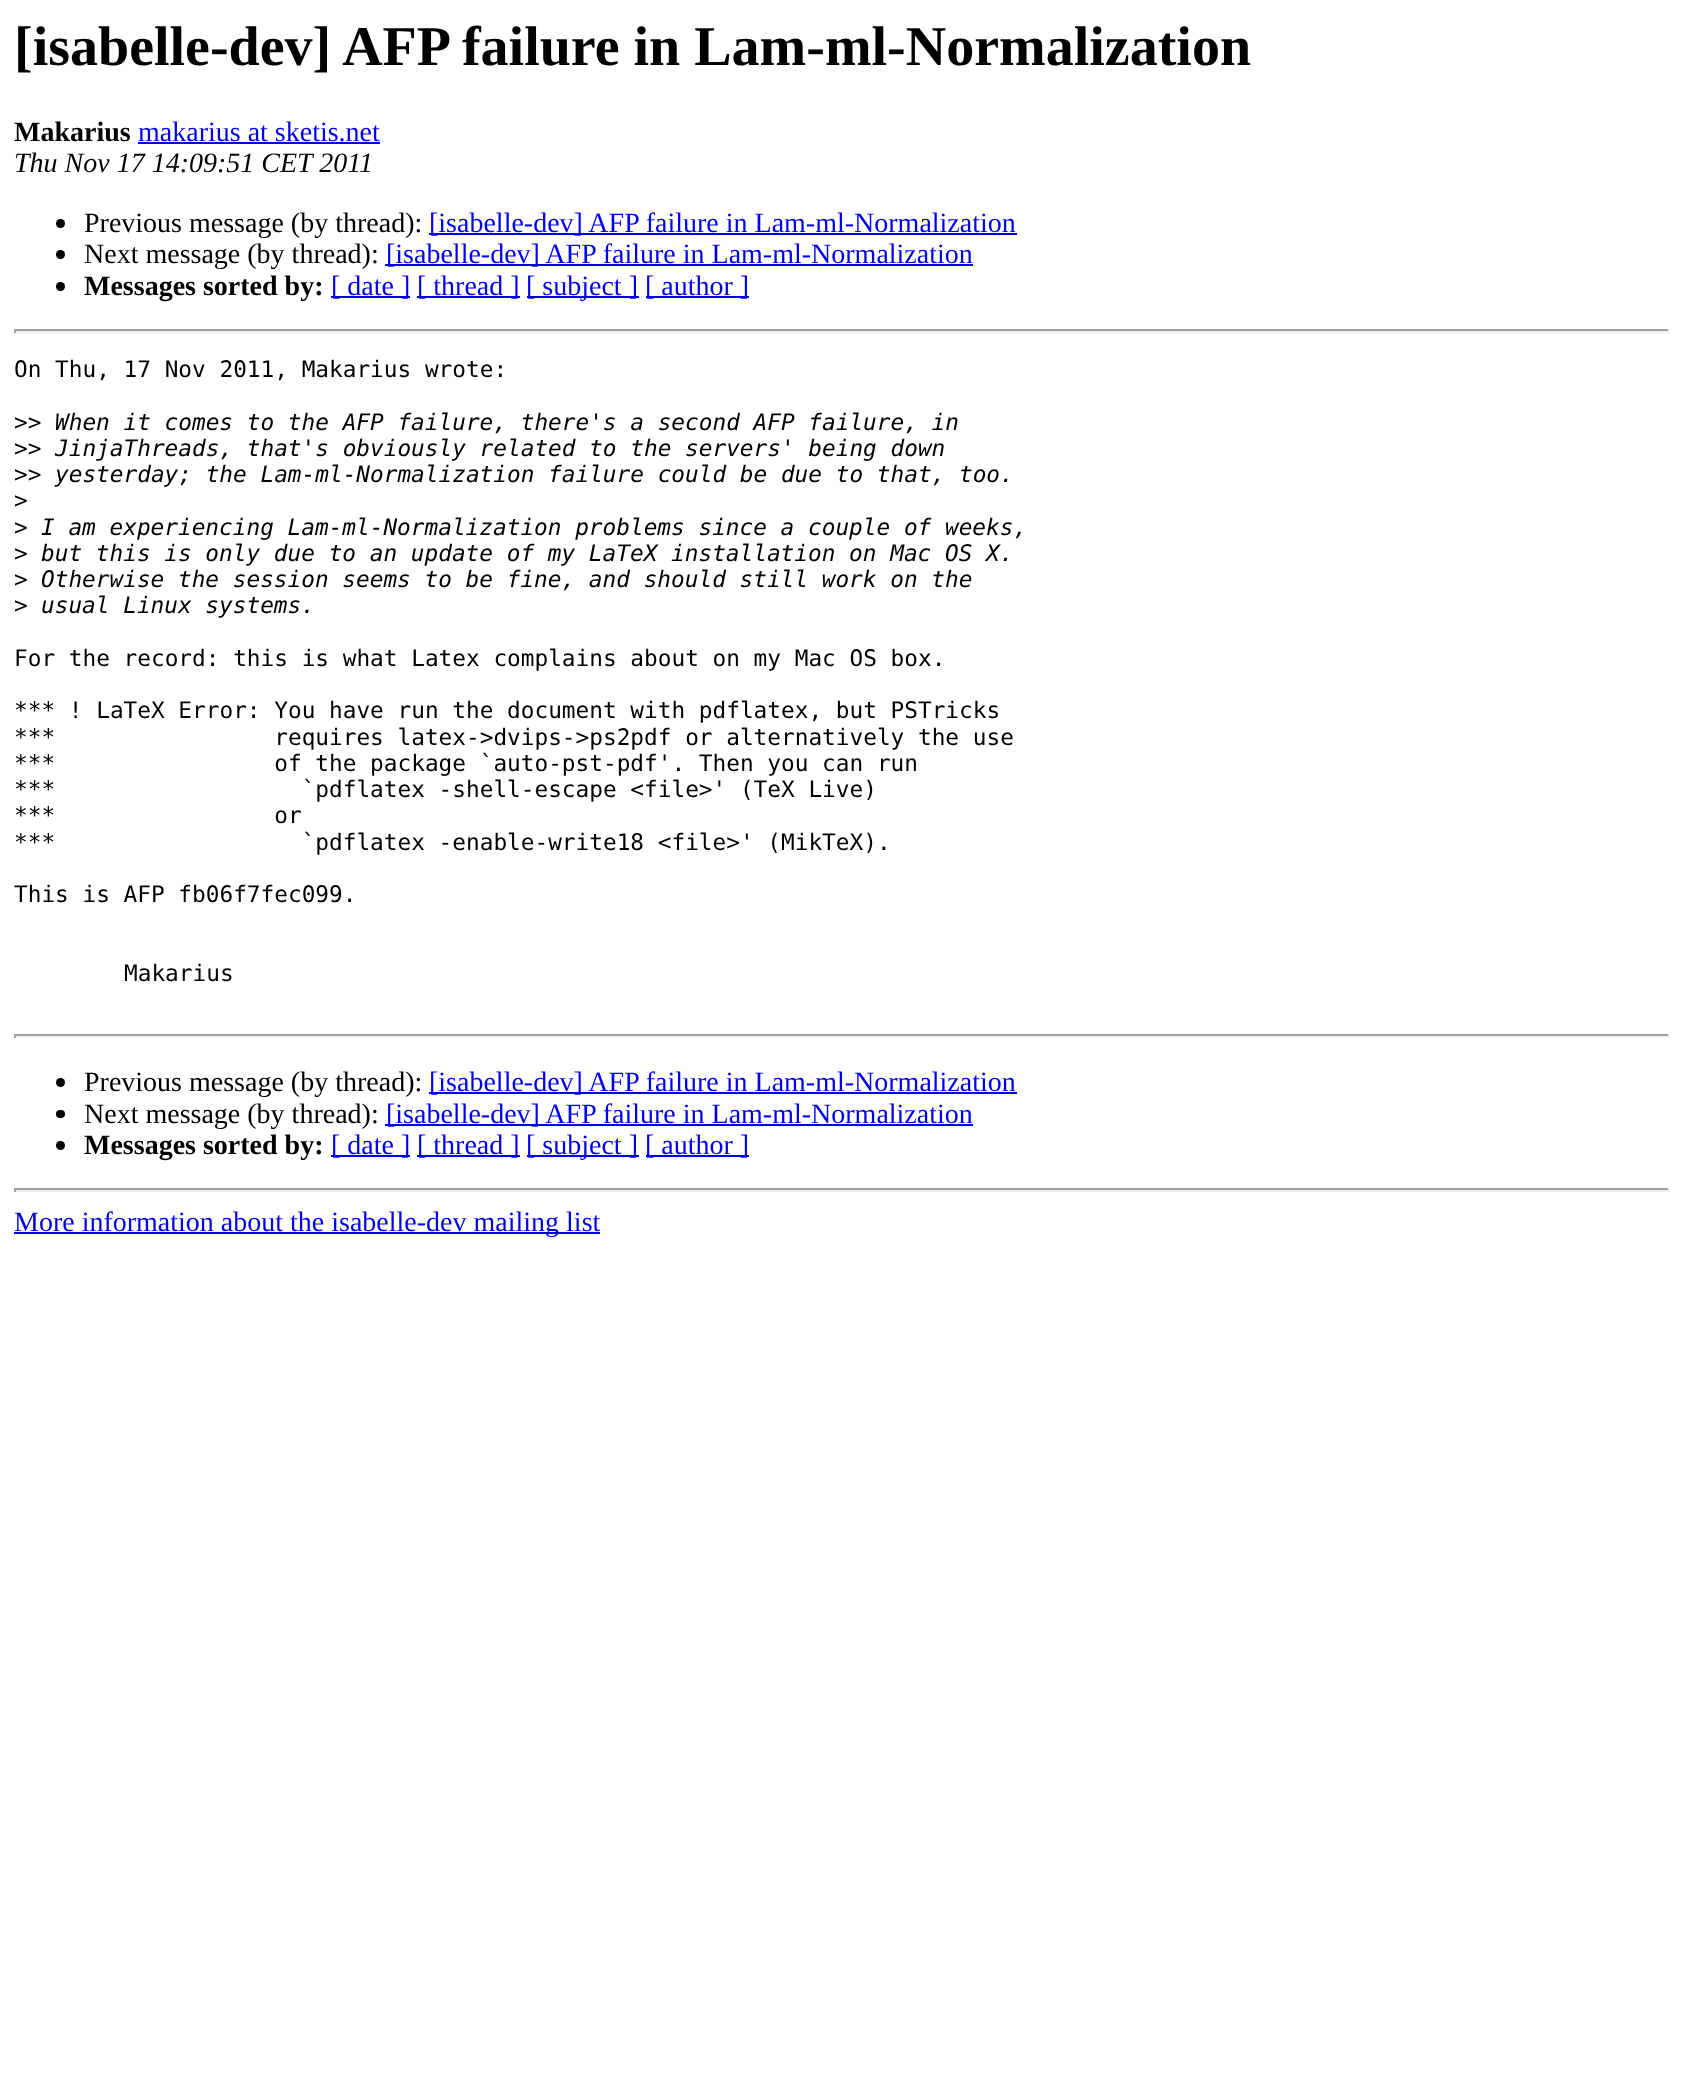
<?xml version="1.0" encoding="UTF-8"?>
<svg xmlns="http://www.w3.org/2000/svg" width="1683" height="2073">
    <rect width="100%" height="100%" fill="#FFFFFF"/>
    <text x="14" y="65" font-family="Liberation Serif" font-size="56" font-weight="700" fill="#000000">[isabelle-dev] AFP failure in Lam-ml-Normalization</text>
    <text x="14" y="141" font-family="Liberation Serif" font-size="28" font-weight="700" fill="#000000">Makarius</text>
    <text x="138" y="141" font-family="Liberation Serif" font-size="28" fill="#0000EE">makarius at sketis.net</text>
    <rect x="138" y="142" width="242" height="2" fill="#0000EE"/>
    <text x="14" y="172" font-family="Liberation Serif" font-size="28" font-style="italic" fill="#000000">Thu Nov 17 14:09:51 CET 2011</text>
    <circle cx="60.5" cy="223.5" r="4.5" fill="#000000"/>
    <text x="84" y="232" font-family="Liberation Serif" font-size="28" fill="#000000">Previous message (by thread):</text>
    <rect x="429" y="233" width="588" height="2" fill="#0000EE"/>
    <text x="429" y="232" font-family="Liberation Serif" font-size="28" fill="#0000EE">[isabelle-dev] AFP failure in Lam-ml-Normalization</text>
    <circle cx="60.5" cy="254.5" r="4.5" fill="#000000"/>
    <text x="84" y="263" font-family="Liberation Serif" font-size="28" fill="#000000">Next message (by thread):</text>
    <rect x="385" y="264" width="588" height="2" fill="#0000EE"/>
    <text x="386" y="263" font-family="Liberation Serif" font-size="28" fill="#0000EE">[isabelle-dev] AFP failure in Lam-ml-Normalization</text>
    <circle cx="60.5" cy="286.5" r="4.5" fill="#000000"/>
    <text x="84" y="295" font-family="Liberation Serif" font-size="28" font-weight="700" fill="#000000">Messages sorted by:</text>
    <rect x="331" y="296" width="79" height="2" fill="#0000EE"/>
    <text x="331" y="295" font-family="Liberation Serif" font-size="28" fill="#0000EE">[ date ]</text>
    <rect x="417" y="296" width="103" height="2" fill="#0000EE"/>
    <text x="417" y="295" font-family="Liberation Serif" font-size="28" fill="#0000EE">[ thread ]</text>
    <rect x="527" y="296" width="112" height="2" fill="#0000EE"/>
    <text x="526" y="295" font-family="Liberation Serif" font-size="28" fill="#0000EE">[ subject ]</text>
    <rect x="646" y="296" width="103" height="2" fill="#0000EE"/>
    <text x="645" y="295" font-family="Liberation Serif" font-size="28" fill="#0000EE">[ author ]</text>
    <rect x="14" y="329" width="1656" height="2" fill="#9F9F9F"/>
    <rect x="1668" y="329" width="2" height="4" fill="#EEEEEE"/>
    <rect x="14" y="331" width="1656" height="2" fill="#EEEEEE"/>
    <rect x="14" y="329" width="2" height="4" fill="#9F9F9F"/>
    <text x="14" y="377" font-family="DejaVu Sans Mono" font-size="22.75" fill="#000000">On Thu, 17 Nov 2011, Makarius wrote:</text>
    <text x="14" y="430" font-family="DejaVu Sans Mono" font-size="22.75" fill="#000000">&gt;&gt;</text>
    <text x="55" y="430" font-family="DejaVu Sans Mono" font-size="22.75" font-style="italic" fill="#000000">When it comes to the AFP failure, there's a second AFP failure, in</text>
    <text x="14" y="456" font-family="DejaVu Sans Mono" font-size="22.75" fill="#000000">&gt;&gt;</text>
    <text x="55" y="456" font-family="DejaVu Sans Mono" font-size="22.75" font-style="italic" fill="#000000">JinjaThreads, that's obviously related to the servers' being down</text>
    <text x="14" y="482" font-family="DejaVu Sans Mono" font-size="22.75" fill="#000000">&gt;&gt;</text>
    <text x="55" y="482" font-family="DejaVu Sans Mono" font-size="22.75" font-style="italic" fill="#000000">yesterday; the Lam-ml-Normalization failure could be due to that, too.</text>
    <text font-family="DejaVu Sans Mono" font-size="22.75" fill="#000000">
        <tspan x="14" y="508">&gt;</tspan>
        <tspan x="14" y="535">&gt;</tspan>
    </text>
    <text x="41" y="535" font-family="DejaVu Sans Mono" font-size="22.75" font-style="italic" fill="#000000">I am experiencing Lam-ml-Normalization problems since a couple of weeks,</text>
    <text x="14" y="561" font-family="DejaVu Sans Mono" font-size="22.75" fill="#000000">&gt;</text>
    <text x="41" y="561" font-family="DejaVu Sans Mono" font-size="22.75" font-style="italic" fill="#000000">but this is only due to an update of my LaTeX installation on Mac OS X.</text>
    <text x="14" y="587" font-family="DejaVu Sans Mono" font-size="22.75" fill="#000000">&gt;</text>
    <text x="41" y="587" font-family="DejaVu Sans Mono" font-size="22.75" font-style="italic" fill="#000000">Otherwise the session seems to be fine, and should still work on the</text>
    <text x="14" y="613" font-family="DejaVu Sans Mono" font-size="22.75" fill="#000000">&gt;</text>
    <text x="41" y="613" font-family="DejaVu Sans Mono" font-size="22.75" font-style="italic" fill="#000000">usual Linux systems.</text>
    <text x="14" y="666" font-family="DejaVu Sans Mono" font-size="22.75" fill="#000000">For the record: this is what Latex complains about on my Mac OS box.</text>
    <text font-family="DejaVu Sans Mono" font-size="22.75" fill="#000000" xml:space="preserve"><tspan x="14" y="718">*** ! LaTeX Error: You have run the document with pdflatex, but PSTricks</tspan><tspan x="14" y="745">***                requires latex-&gt;dvips-&gt;ps2pdf or alternatively the use</tspan><tspan x="14" y="771">***                of the package `auto-pst-pdf'. Then you can run</tspan><tspan x="14" y="797">***                  `pdflatex -shell-escape &lt;file&gt;' (TeX Live)</tspan><tspan x="14" y="823">***                or</tspan><tspan x="14" y="850">***                  `pdflatex -enable-write18 &lt;file&gt;' (MikTeX).</tspan></text>
    <text x="14" y="902" font-family="DejaVu Sans Mono" font-size="22.75" fill="#000000">This is AFP fb06f7fec099.</text>
    <text x="124" y="981" font-family="DejaVu Sans Mono" font-size="22.75" fill="#000000">Makarius</text>
    <rect x="14" y="1034" width="1656" height="2" fill="#9F9F9F"/>
    <rect x="1668" y="1034" width="2" height="4" fill="#EEEEEE"/>
    <rect x="14" y="1036" width="1656" height="2" fill="#EEEEEE"/>
    <rect x="14" y="1034" width="2" height="4" fill="#9F9F9F"/>
    <circle cx="60.5" cy="1082.5" r="4.5" fill="#000000"/>
    <text x="84" y="1091" font-family="Liberation Serif" font-size="28" fill="#000000">Previous message (by thread):</text>
    <rect x="429" y="1092" width="588" height="2" fill="#0000EE"/>
    <text x="429" y="1091" font-family="Liberation Serif" font-size="28" fill="#0000EE">[isabelle-dev] AFP failure in Lam-ml-Normalization</text>
    <rect x="56" y="1110" width="9" height="8" rx="4" fill="#000000"/>
    <text x="84" y="1123" font-family="Liberation Serif" font-size="28" fill="#000000">Next message (by thread):</text>
    <rect x="385" y="1124" width="588" height="2" fill="#0000EE"/>
    <text x="386" y="1123" font-family="Liberation Serif" font-size="28" fill="#0000EE">[isabelle-dev] AFP failure in Lam-ml-Normalization</text>
    <circle cx="60.5" cy="1145.5" r="4.5" fill="#000000"/>
    <text x="84" y="1154" font-family="Liberation Serif" font-size="28" font-weight="700" fill="#000000">Messages sorted by:</text>
    <rect x="331" y="1155" width="79" height="2" fill="#0000EE"/>
    <text x="331" y="1154" font-family="Liberation Serif" font-size="28" fill="#0000EE">[ date ]</text>
    <rect x="417" y="1155" width="103" height="2" fill="#0000EE"/>
    <text x="417" y="1154" font-family="Liberation Serif" font-size="28" fill="#0000EE">[ thread ]</text>
    <rect x="527" y="1155" width="112" height="2" fill="#0000EE"/>
    <text x="526" y="1154" font-family="Liberation Serif" font-size="28" fill="#0000EE">[ subject ]</text>
    <rect x="646" y="1155" width="103" height="2" fill="#0000EE"/>
    <text x="645" y="1154" font-family="Liberation Serif" font-size="28" fill="#0000EE">[ author ]</text>
    <rect x="14" y="1188" width="1656" height="2" fill="#9F9F9F"/>
    <rect x="1668" y="1188" width="2" height="4" fill="#EEEEEE"/>
    <rect x="14" y="1190" width="1656" height="2" fill="#EEEEEE"/>
    <rect x="14" y="1188" width="2" height="4" fill="#9F9F9F"/>
    <rect x="14" y="1232" width="586" height="2" fill="#0000EE"/>
    <text x="14" y="1231" font-family="Liberation Serif" font-size="28" fill="#0000EE">More information about the isabelle-dev mailing list</text>
</svg>
